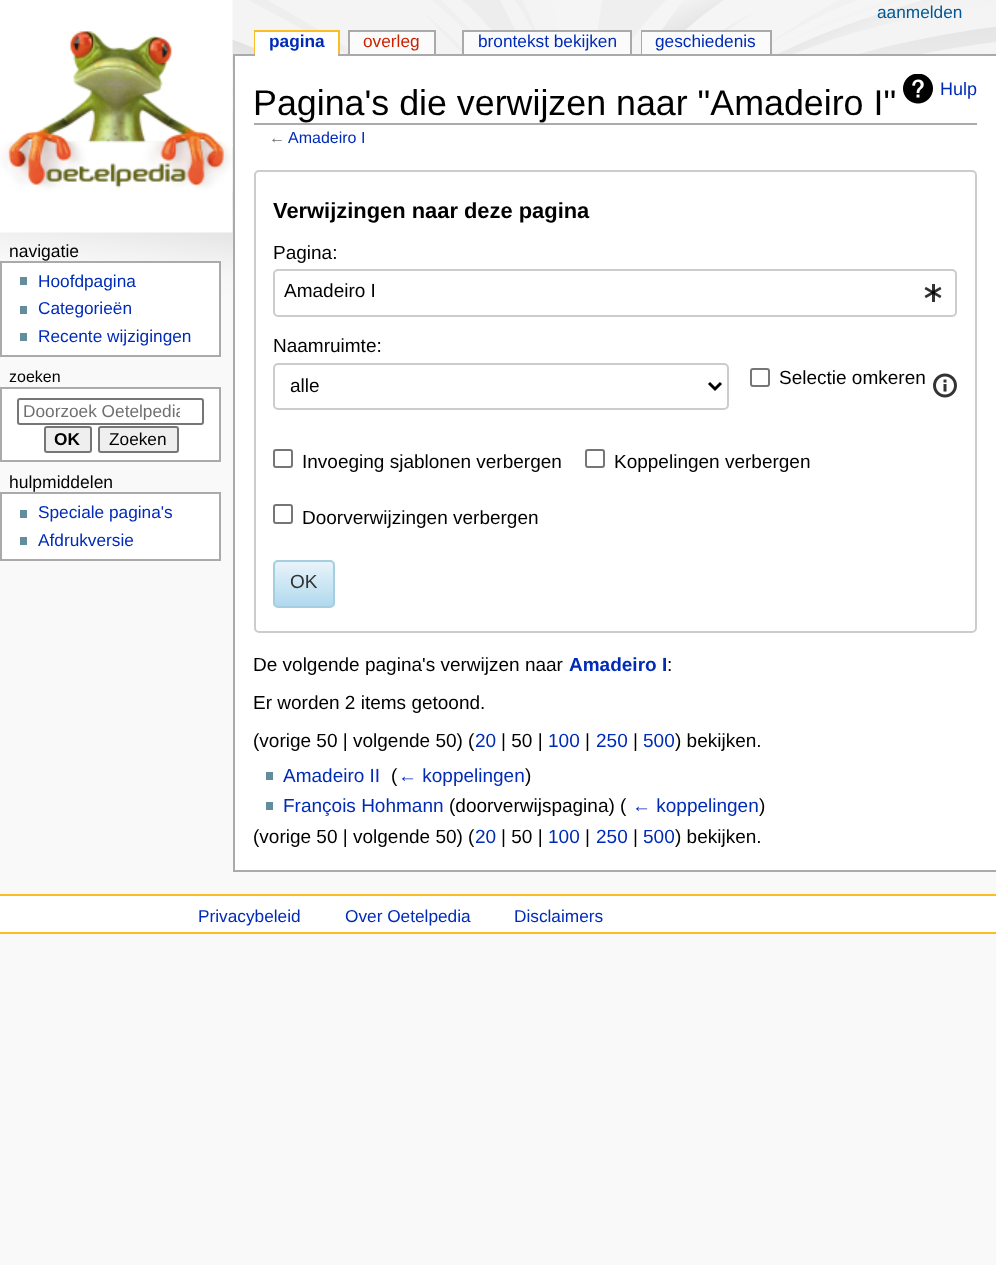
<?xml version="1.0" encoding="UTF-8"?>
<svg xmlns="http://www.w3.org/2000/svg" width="996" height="1265">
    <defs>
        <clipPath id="clip1"><rect x="23" y="402" width="157" height="18"/></clipPath>
        <clipPath id="clip2"><rect x="273" y="560" width="62" height="48" rx="5"/></clipPath>
        <linearGradient id="g1" gradientUnits="userSpaceOnUse" x1="304" y1="561" x2="304" y2="606"><stop offset="0" stop-color="#EAF4FA"/><stop offset="1" stop-color="#B0D9EE"/></linearGradient>
    </defs>
    <rect width="100%" height="100%" fill="#F9F9F9"/>
    <image x="0" y="0" width="996" height="315" href="img_01.png"/>
    <image x="0" y="0" width="233" height="233" href="img_02.png"/>
    <text x="877" y="18" font-family="Liberation Sans" font-size="17.25" fill="#005896">aanmelden</text>
    <rect x="254" y="30" width="85" height="2" fill="#FABD23"/>
    <rect x="254" y="30" width="2" height="24" fill="#FABD23"/>
    <rect x="233" y="54" width="763" height="2" fill="#AAAAAA"/>
    <rect x="255" y="32" width="83" height="24" fill="#FFFFFF"/>
    <text x="269" y="47" font-family="Liberation Sans" font-size="17.25" font-weight="700" fill="#002BB8">pagina</text>
    <rect x="338" y="30" width="2" height="24" fill="#FABD23"/>
    <rect x="350" y="32" width="84" height="22" fill="#FBFBFB"/>
    <text x="363" y="47" font-family="Liberation Sans" font-size="17.25" fill="#CC2200">overleg</text>
    <rect x="348" y="30" width="87" height="2" fill="#AAAAAA"/>
    <rect x="434" y="30" width="2" height="24" fill="#AAAAAA"/>
    <rect x="348" y="30" width="2" height="24" fill="#AAAAAA"/>
    <rect x="464" y="32" width="166" height="22" fill="#FBFBFB"/>
    <text x="478" y="47" font-family="Liberation Sans" font-size="17.25" fill="#002BB8">brontekst bekijken</text>
    <rect x="462" y="30" width="170" height="2" fill="#AAAAAA"/>
    <rect x="630" y="30" width="2" height="24" fill="#AAAAAA"/>
    <rect x="462" y="30" width="2" height="24" fill="#AAAAAA"/>
    <rect x="641" y="30" width="130" height="2" fill="#AAAAAA"/>
    <rect x="641" y="30" width="2" height="24" fill="#AAAAAA"/>
    <rect x="642" y="32" width="128" height="22" fill="#FBFBFB"/>
    <text x="655" y="47" font-family="Liberation Sans" font-size="17.25" fill="#002BB8">geschiedenis</text>
    <rect x="770" y="30" width="2" height="24" fill="#AAAAAA"/>
    <text x="9" y="257" font-family="Liberation Sans" font-size="17.5" fill="#000000">navigatie</text>
    <rect x="1" y="262" width="219" height="94" fill="#FFFFFF" stroke="#AAAAAA" stroke-width="2"/>
    <rect x="20" y="277" width="7" height="8" fill="#638C9C"/>
    <text x="38" y="287" font-family="Liberation Sans" font-size="17.25" fill="#002BB8">Hoofdpagina</text>
    <rect x="20" y="306" width="7" height="8" fill="#638C9C"/>
    <text x="38" y="314" font-family="Liberation Sans" font-size="17.25" fill="#002BB8">Categorieën</text>
    <rect x="20" y="333" width="7" height="8" fill="#638C9C"/>
    <text x="38" y="342" font-family="Liberation Sans" font-size="17.25" fill="#002BB8">Recente wijzigingen</text>
    <text x="9" y="382" font-family="Liberation Sans" font-size="16" fill="#000000">zoeken</text>
    <rect x="1" y="388" width="219" height="73" fill="#FFFFFF" stroke="#AAAAAA" stroke-width="2"/>
    <rect x="18" y="399" width="185" height="25" rx="2" fill="none" stroke="#767676" stroke-width="2"/>
    <g clip-path="url(#clip1)">
        <text x="23" y="417" font-family="Liberation Sans" font-size="17.25" fill="#707070">Doorzoek Oetelpedia</text>
    </g>
    <rect x="45" y="427" width="46" height="25" rx="2" fill="#EFEFEF" stroke="#767676" stroke-width="2"/>
    <text x="54" y="445" font-family="Liberation Sans" font-size="17.25" font-weight="700" fill="#000000">OK</text>
    <rect x="99" y="427" width="79" height="25" rx="2" fill="#EFEFEF" stroke="#767676" stroke-width="2"/>
    <text x="109" y="445" font-family="Liberation Sans" font-size="17.25" fill="#000000">Zoeken</text>
    <text x="9" y="488" font-family="Liberation Sans" font-size="17.5" fill="#000000">hulpmiddelen</text>
    <rect x="1" y="493" width="219" height="67" fill="#FFFFFF" stroke="#AAAAAA" stroke-width="2"/>
    <rect x="20" y="510" width="7" height="8" fill="#638C9C"/>
    <text x="38" y="518" font-family="Liberation Sans" font-size="17.25" fill="#002BB8">Speciale pagina's</text>
    <rect x="20" y="537" width="7" height="8" fill="#638C9C"/>
    <text x="38" y="546" font-family="Liberation Sans" font-size="17.25" fill="#002BB8">Afdrukversie</text>
    <rect x="235" y="56" width="761" height="814" fill="#FFFFFF"/>
    <rect x="233" y="870" width="763" height="2" fill="#AAAAAA"/>
    <rect x="233" y="54" width="2" height="818" fill="#AAAAAA"/>
    <rect x="254" y="123" width="723" height="2" fill="#AAAAAA"/>
    <text x="253" y="115" font-family="Liberation Sans" font-size="35.8" fill="#000000">Pagina's die verwijzen naar "Amadeiro I"</text>
    <image x="903" y="74" width="30" height="30" href="img_03.png"/>
    <text x="940" y="95" font-family="Liberation Sans" font-size="18" fill="#002BB8">Hulp</text>
    <text x="269" y="143" font-family="Liberation Sans" font-size="16" fill="#707070">←</text>
    <text x="288" y="143" font-family="Liberation Sans" font-size="16" fill="#002BB8">Amadeiro I</text>
    <rect x="255" y="171" width="721" height="461" rx="4" fill="none" stroke="#CCCCCC" stroke-width="2"/>
    <text x="273" y="218" font-family="Liberation Sans" font-size="21.9" font-weight="700" fill="#000000">Verwijzingen naar deze pagina</text>
    <text x="273" y="259" font-family="Liberation Sans" font-size="19" fill="#000000">Pagina:</text>
    <rect x="274" y="270" width="682" height="46" rx="4" fill="none" stroke="#CCCCCC" stroke-width="2"/>
    <text x="284" y="297" font-family="Liberation Sans" font-size="19" fill="#000000">Amadeiro I</text>
    <image x="924" y="284" width="18" height="18" href="img_04.png"/>
    <text x="273" y="352" font-family="Liberation Sans" font-size="19" fill="#000000">Naamruimte:</text>
    <rect x="274" y="364" width="454" height="45" rx="4" fill="none" stroke="#CCCCCC" stroke-width="2"/>
    <path d="M 709 383 L 715 389 L 721 383" fill="none" stroke="#000000" stroke-width="3"/>
    <text x="290" y="392" font-family="Liberation Sans" font-size="19" fill="#000000">alle</text>
    <rect x="751" y="369" width="18" height="17" rx="2" fill="none" stroke="#767676" stroke-width="2"/>
    <text x="779" y="384" font-family="Liberation Sans" font-size="19" fill="#000000">Selectie omkeren</text>
    <image x="933" y="373" width="24" height="25" href="img_05.png"/>
    <rect x="274" y="450" width="18" height="17" rx="2" fill="none" stroke="#767676" stroke-width="2"/>
    <text x="302" y="468" font-family="Liberation Sans" font-size="19" fill="#000000">Invoeging sjablonen verbergen</text>
    <rect x="586" y="450" width="18" height="17" rx="2" fill="none" stroke="#767676" stroke-width="2"/>
    <text x="614" y="468" font-family="Liberation Sans" font-size="19" fill="#000000">Koppelingen verbergen</text>
    <rect x="274" y="505" width="18" height="18" rx="2" fill="none" stroke="#767676" stroke-width="2"/>
    <text x="302" y="524" font-family="Liberation Sans" font-size="19" fill="#000000">Doorverwijzingen verbergen</text>
    <g clip-path="url(#clip2)">
        <rect x="273" y="561" width="62" height="45" fill="url(#g1)"/>
    </g>
    <rect x="274" y="561" width="60" height="46" rx="4" fill="none" stroke="#A6CEE1" stroke-width="2"/>
    <text x="290" y="588" font-family="Liberation Sans" font-size="19" fill="#333333">OK</text>
    <text x="253" y="671" font-family="Liberation Sans" font-size="19" fill="#000000">De volgende pagina's verwijzen naar</text>
    <text x="569" y="671" font-family="Liberation Sans" font-size="19" font-weight="700" fill="#002BB8">Amadeiro I</text>
    <text x="667" y="671" font-family="Liberation Sans" font-size="19" fill="#000000">:</text>
    <text x="253" y="709" font-family="Liberation Sans" font-size="19" fill="#000000">Er worden 2 items getoond.</text>
    <text x="253" y="747" font-family="Liberation Sans" font-size="19" fill="#000000">(vorige 50 | volgende 50) (</text>
    <text x="475" y="747" font-family="Liberation Sans" font-size="19" fill="#002BB8">20</text>
    <text x="501" y="747" font-family="Liberation Sans" font-size="19" fill="#000000">| 50 |</text>
    <text x="548" y="747" font-family="Liberation Sans" font-size="19" fill="#002BB8">100</text>
    <text x="585" y="747" font-family="Liberation Sans" font-size="19" fill="#000000">|</text>
    <text x="596" y="747" font-family="Liberation Sans" font-size="19" fill="#002BB8">250</text>
    <text x="633" y="747" font-family="Liberation Sans" font-size="19" fill="#000000">|</text>
    <text x="643" y="747" font-family="Liberation Sans" font-size="19" fill="#002BB8">500</text>
    <text x="675" y="747" font-family="Liberation Sans" font-size="19" fill="#000000">) bekijken.</text>
    <rect x="266" y="772" width="7" height="8" fill="#638C9C"/>
    <text x="283" y="782" font-family="Liberation Sans" font-size="19" fill="#002BB8">Amadeiro II</text>
    <text x="391" y="782" font-family="Liberation Sans" font-size="19" fill="#000000">(</text>
    <text x="398" y="782" font-family="Liberation Sans" font-size="19" fill="#002BB8">← koppelingen</text>
    <text x="525" y="782" font-family="Liberation Sans" font-size="19" fill="#000000">)</text>
    <rect x="266" y="802" width="7" height="8" fill="#638C9C"/>
    <text x="283" y="812" font-family="Liberation Sans" font-size="19" fill="#002BB8">François Hohmann</text>
    <text x="449" y="812" font-family="Liberation Sans" font-size="19" fill="#000000">(doorverwijspagina)  (</text>
    <text x="632" y="812" font-family="Liberation Sans" font-size="19" fill="#002BB8">← koppelingen</text>
    <text x="759" y="812" font-family="Liberation Sans" font-size="19" fill="#000000">)</text>
    <text x="253" y="843" font-family="Liberation Sans" font-size="19" fill="#000000">(vorige 50 | volgende 50) (</text>
    <text x="475" y="843" font-family="Liberation Sans" font-size="19" fill="#002BB8">20</text>
    <text x="501" y="843" font-family="Liberation Sans" font-size="19" fill="#000000">| 50 |</text>
    <text x="548" y="843" font-family="Liberation Sans" font-size="19" fill="#002BB8">100</text>
    <text x="585" y="843" font-family="Liberation Sans" font-size="19" fill="#000000">|</text>
    <text x="596" y="843" font-family="Liberation Sans" font-size="19" fill="#002BB8">250</text>
    <text x="633" y="843" font-family="Liberation Sans" font-size="19" fill="#000000">|</text>
    <text x="643" y="843" font-family="Liberation Sans" font-size="19" fill="#002BB8">500</text>
    <text x="675" y="843" font-family="Liberation Sans" font-size="19" fill="#000000">) bekijken.</text>
    <rect x="0" y="896" width="996" height="36" fill="#FFFFFF"/>
    <rect x="0" y="894" width="996" height="2" fill="#FABD23"/>
    <rect x="0" y="932" width="996" height="2" fill="#FABD23"/>
    <text x="198" y="922" font-family="Liberation Sans" font-size="17.25" fill="#002BB8">Privacybeleid</text>
    <text x="345" y="922" font-family="Liberation Sans" font-size="17.25" fill="#002BB8">Over Oetelpedia</text>
    <text x="514" y="922" font-family="Liberation Sans" font-size="17.25" fill="#002BB8">Disclaimers</text>
</svg>
